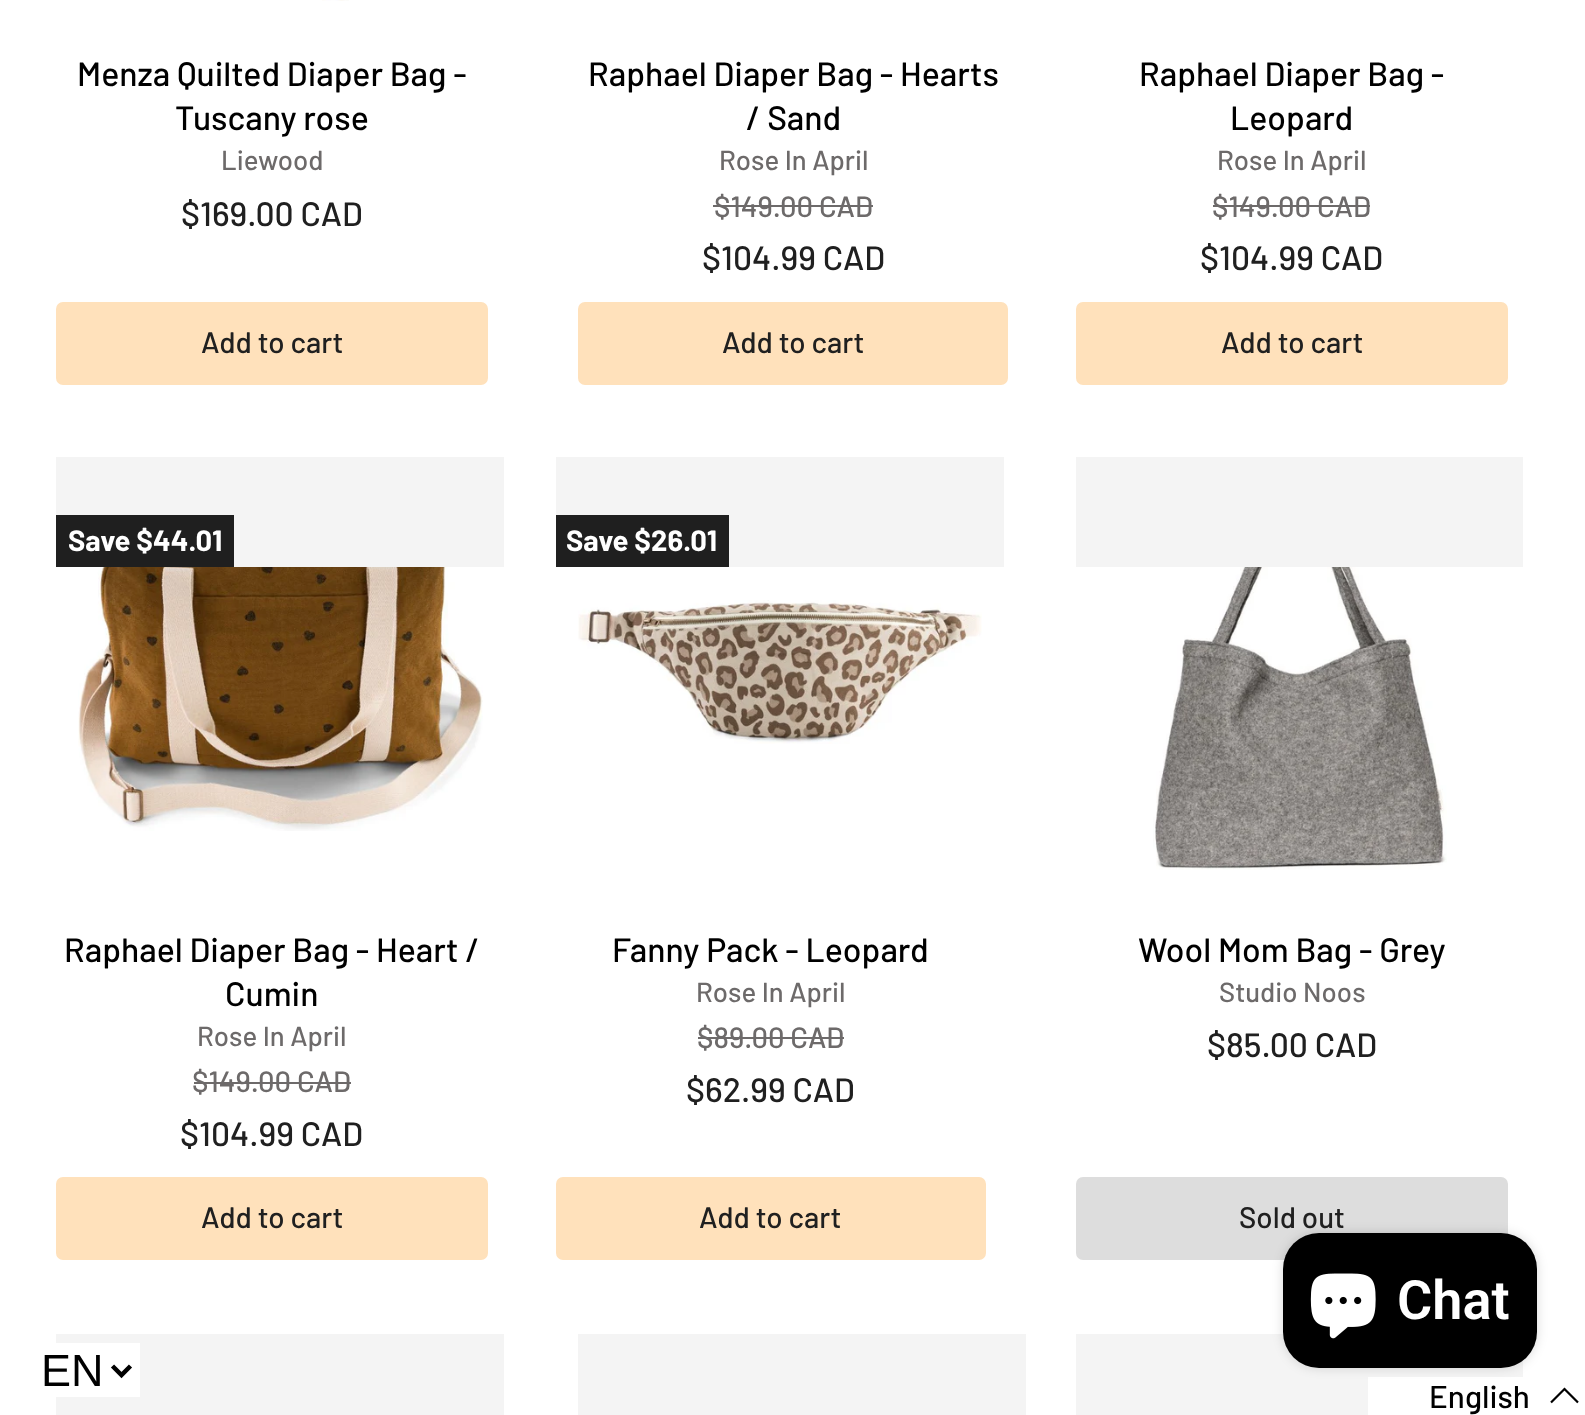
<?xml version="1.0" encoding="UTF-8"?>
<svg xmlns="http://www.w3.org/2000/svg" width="1585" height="1415">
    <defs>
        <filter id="blur1" x="-50%" y="-200%" width="200%" height="500%"><feGaussianBlur stdDeviation="5.5"/></filter>
    </defs>
    <rect width="100%" height="100%" fill="#FFFFFF"/>
    <image x="322" y="0" width="27" height="1" href="img_01.png"/>
    <text x="77" y="86" font-family="Barlow" font-size="33.75" font-weight="500" fill="#000000">Menza Quilted Diaper Bag -</text>
    <text x="175" y="130" font-family="Barlow" font-size="33.75" font-weight="500" fill="#000000">Tuscany rose</text>
    <text x="221" y="170" font-family="Barlow" font-size="27.5" font-weight="500" fill="#6D6A6A">Liewood</text>
    <text x="181" y="226" font-family="Barlow" font-size="33.75" font-weight="500" fill="#202020">$169.00 CAD</text>
    <rect x="57" y="303" width="430" height="81" rx="6" fill="#FFE1BB" stroke="#FFE1BB" stroke-width="2"/>
    <text x="201" y="353" font-family="Barlow" font-size="29.5" font-weight="500" fill="#202020">Add to cart</text>
    <text x="588" y="86" font-family="Barlow" font-size="33.75" font-weight="500" fill="#000000">Raphael Diaper Bag - Hearts</text>
    <text x="746" y="130" font-family="Barlow" font-size="33.75" font-weight="500" fill="#000000">/ Sand</text>
    <text x="719" y="170" font-family="Barlow" font-size="27.5" font-weight="500" fill="#6D6A6A">Rose In April</text>
    <text x="714" y="217" font-family="Barlow" font-size="29.25" font-weight="500" fill="#6D6A6A">$149.00 CAD</text>
    <rect x="713" y="205" width="160" height="2" fill="#6D6A6A"/>
    <text x="702" y="270" font-family="Barlow" font-size="33.75" font-weight="500" fill="#202020">$104.99 CAD</text>
    <rect x="579" y="303" width="428" height="81" rx="6" fill="#FFE1BB" stroke="#FFE1BB" stroke-width="2"/>
    <text x="722" y="353" font-family="Barlow" font-size="29.5" font-weight="500" fill="#202020">Add to cart</text>
    <text x="1139" y="86" font-family="Barlow" font-size="33.75" font-weight="500" fill="#000000">Raphael Diaper Bag -</text>
    <text x="1230" y="130" font-family="Barlow" font-size="33.75" font-weight="500" fill="#000000">Leopard</text>
    <text x="1217" y="170" font-family="Barlow" font-size="27.5" font-weight="500" fill="#6D6A6A">Rose In April</text>
    <text x="1212" y="217" font-family="Barlow" font-size="29.25" font-weight="500" fill="#6D6A6A">$149.00 CAD</text>
    <rect x="1213" y="205" width="157" height="2" fill="#6D6A6A"/>
    <text x="1200" y="270" font-family="Barlow" font-size="33.75" font-weight="500" fill="#202020">$104.99 CAD</text>
    <rect x="1077" y="303" width="430" height="81" rx="6" fill="#FFE1BB" stroke="#FFE1BB" stroke-width="2"/>
    <text x="1221" y="353" font-family="Barlow" font-size="29.5" font-weight="500" fill="#202020">Add to cart</text>
    <image x="78" y="567" width="405" height="264" href="img_02.png"/>
    <rect x="56" y="457" width="448" height="110" fill="#F4F4F4"/>
    <rect x="56" y="515" width="178" height="52" fill="#1F1F1F"/>
    <text x="68" y="551" font-family="Barlow" font-size="29.25" font-weight="700" fill="#FFFFFF">Save $44.01</text>
    <text x="64" y="962" font-family="Barlow" font-size="33.75" font-weight="500" fill="#000000">Raphael Diaper Bag - Heart /</text>
    <text x="225" y="1006" font-family="Barlow" font-size="33.75" font-weight="500" fill="#000000">Cumin</text>
    <text x="197" y="1046" font-family="Barlow" font-size="27.5" font-weight="500" fill="#6D6A6A">Rose In April</text>
    <text x="192" y="1092" font-family="Barlow" font-size="29.25" font-weight="500" fill="#6D6A6A">$149.00 CAD</text>
    <rect x="194" y="1082" width="157" height="2" fill="#6D6A6A"/>
    <text x="180" y="1146" font-family="Barlow" font-size="33.75" font-weight="500" fill="#202020">$104.99 CAD</text>
    <rect x="57" y="1178" width="430" height="81" rx="6" fill="#FFE1BB" stroke="#FFE1BB" stroke-width="2"/>
    <text x="201" y="1228" font-family="Barlow" font-size="29.5" font-weight="500" fill="#202020">Add to cart</text>
    <image x="578" y="600" width="404" height="144" href="img_03.png"/>
    <rect x="556" y="457" width="448" height="110" fill="#F4F4F4"/>
    <rect x="556" y="515" width="173" height="52" fill="#1F1F1F"/>
    <text x="566" y="551" font-family="Barlow" font-size="29.25" font-weight="700" fill="#FFFFFF">Save $26.01</text>
    <text x="612" y="962" font-family="Barlow" font-size="33.75" font-weight="500" fill="#000000">Fanny Pack - Leopard</text>
    <text x="696" y="1002" font-family="Barlow" font-size="27.5" font-weight="500" fill="#6D6A6A">Rose In April</text>
    <text x="697" y="1048" font-family="Barlow" font-size="29.25" font-weight="500" fill="#6D6A6A">$89.00 CAD</text>
    <rect x="698" y="1037" width="146" height="2" fill="#6D6A6A"/>
    <text x="686" y="1102" font-family="Barlow" font-size="33.75" font-weight="500" fill="#202020">$62.99 CAD</text>
    <rect x="557" y="1178" width="428" height="81" rx="6" fill="#FFE1BB" stroke="#FFE1BB" stroke-width="2"/>
    <text x="699" y="1228" font-family="Barlow" font-size="29.5" font-weight="500" fill="#202020">Add to cart</text>
    <image x="1153" y="567" width="294" height="303" href="img_04.png"/>
    <rect x="1076" y="457" width="447" height="110" fill="#F4F4F4"/>
    <text x="1138" y="962" font-family="Barlow" font-size="33.75" font-weight="500" fill="#000000">Wool Mom Bag - Grey</text>
    <text x="1219" y="1002" font-family="Barlow" font-size="27.5" font-weight="500" fill="#6D6A6A">Studio Noos</text>
    <text x="1207" y="1057" font-family="Barlow" font-size="33.75" font-weight="500" fill="#202020">$85.00 CAD</text>
    <rect x="1077" y="1178" width="430" height="81" rx="6" fill="#DDDDDD" stroke="#DDDDDD" stroke-width="2"/>
    <text x="1239" y="1228" font-family="Barlow" font-size="29.5" font-weight="500" fill="#202020">Sold out</text>
    <rect x="56" y="1334" width="448" height="81" fill="#F4F4F4"/>
    <rect x="578" y="1334" width="448" height="81" fill="#F4F4F4"/>
    <rect x="1076" y="1334" width="447" height="81" fill="#F4F4F4"/>
    <rect x="1368" y="1377" width="155" height="38" fill="#FFFFFF"/>
    <rect x="1283" y="1233" width="254" height="135" rx="36" fill="#000000" fill-opacity="0.15" filter="url(#blur1)"/>
    <rect x="1283" y="1233" width="254" height="135" rx="36" fill="#000000"/>
    <image x="1310" y="1273" width="66" height="66" href="img_05.png"/>
    <text x="1397" y="1319" font-family="Roboto" font-size="54" font-weight="600" fill="#FFFFFF">Chat</text>
    <rect x="56" y="1343" width="84" height="54" fill="#FFFFFF"/>
    <path d="M 112.5 1366 L 121.5 1375 L 130.5 1366" fill="none" stroke="#000000" stroke-width="4.5"/>
    <text x="41" y="1386" font-family="Liberation Sans" font-size="45" fill="#000000">EN</text>
    <text x="1429" y="1408" font-family="Barlow" font-size="31.5" font-weight="500" fill="#000000">English</text>
    <path d="M 1578 1402.5 L 1564.5 1389 L 1551 1402.5" fill="none" stroke="#000000" stroke-width="2.2"/>
</svg>
